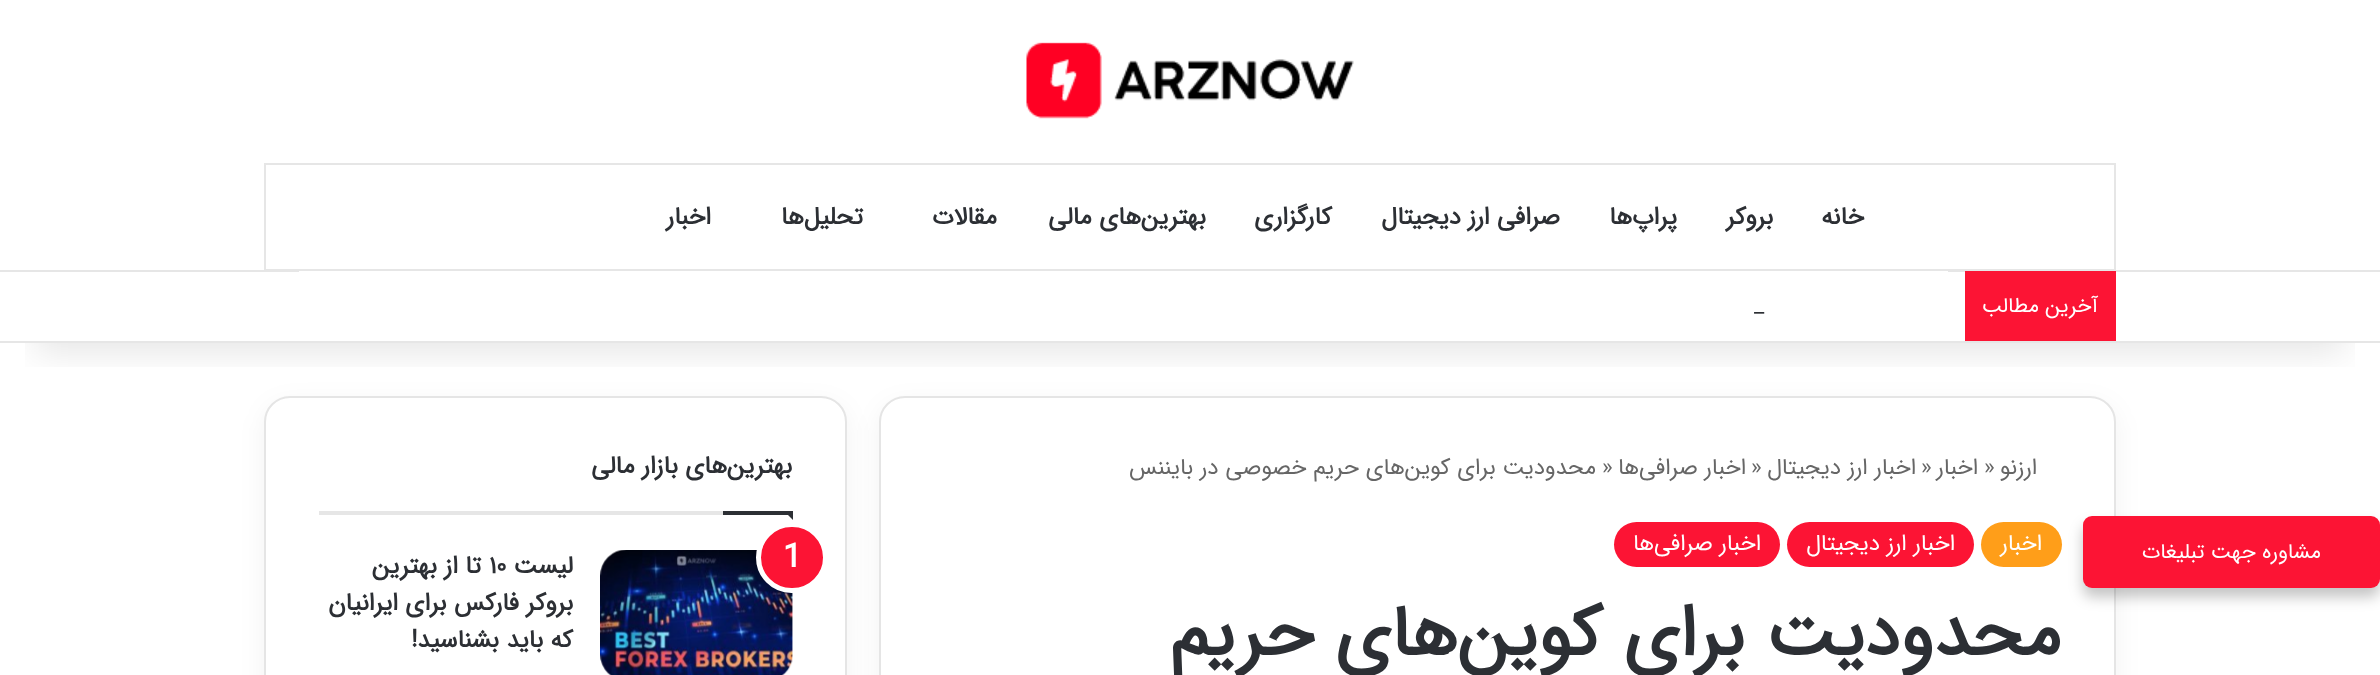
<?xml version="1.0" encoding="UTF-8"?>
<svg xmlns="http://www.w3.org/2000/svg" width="2380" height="675">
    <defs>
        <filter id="blur1" x="-50%" y="-200%" width="200%" height="500%"><feGaussianBlur stdDeviation="13"/></filter>
        <filter id="blur2" x="-50%" y="-200%" width="200%" height="500%"><feGaussianBlur stdDeviation="7"/></filter>
        <clipPath id="clip1"><rect x="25" y="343" width="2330" height="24"/></clipPath>
        <filter id="blur3" x="-50%" y="-200%" width="200%" height="500%"><feGaussianBlur stdDeviation="17.5"/></filter>
    </defs>
    <rect width="100%" height="100%" fill="#FFFFFF"/>
    <rect x="879" y="404" width="1237" height="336" rx="26" fill="#000000" fill-opacity="0.05" filter="url(#blur1)"/>
    <rect x="880" y="397" width="1235" height="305" rx="25" fill="#FFFFFF" stroke="#E5E5E5" stroke-width="2"/>
    <rect x="1981" y="522" width="81" height="45" rx="22.5" fill="#FF9E19"/>
    <rect x="2083" y="525" width="297" height="72" rx="9" fill="#000000" fill-opacity="0.23" filter="url(#blur2)"/>
    <rect x="2083" y="516" width="297" height="72" rx="9" fill="#FC1434"/>
    <text x="2321" y="558" font-family="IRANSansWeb" font-size="21" direction="rtl" fill="#FFFFFF">مشاوره جهت تبلیغات</text>
    <rect x="264" y="404" width="583" height="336" rx="26" fill="#000000" fill-opacity="0.05" filter="url(#blur1)"/>
    <rect x="265" y="397" width="581" height="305" rx="25" fill="#FFFFFF" stroke="#E5E5E5" stroke-width="2"/>
    <g clip-path="url(#clip1)">
        <rect x="35" y="79" width="2310" height="273" fill="#000000" fill-opacity="0.1" filter="url(#blur3)"/>
    </g>
    <image x="1026" y="42" width="328" height="77" href="img_01.png"/>
    <rect x="0" y="270" width="2380" height="2" fill="#E6E6E6"/>
    <rect x="265" y="164" width="1850" height="106" fill="none" stroke="#E6E6E6" stroke-width="2"/>
    <text x="1864" y="224" font-family="IRANSansWeb" font-size="24.5" font-weight="700" direction="rtl" fill="#2C2F34">خانه</text>
    <text x="1773" y="224" font-family="IRANSansWeb" font-size="24.5" font-weight="700" direction="rtl" fill="#2C2F34">بروکر</text>
    <text x="1677" y="224" font-family="IRANSansWeb" font-size="24.5" font-weight="700" direction="rtl" fill="#2C2F34">پراپ‌ها</text>
    <text x="1560" y="224" font-family="IRANSansWeb" font-size="24.5" font-weight="700" direction="rtl" fill="#2C2F34">صرافی ارز دیجیتال</text>
    <text x="1332" y="224" font-family="IRANSansWeb" font-size="24.5" font-weight="700" direction="rtl" fill="#2C2F34">کارگزاری</text>
    <text x="1206" y="224" font-family="IRANSansWeb" font-size="24.5" font-weight="700" direction="rtl" fill="#2C2F34">بهترین‌های مالی</text>
    <text x="997" y="224" font-family="IRANSansWeb" font-size="24.5" font-weight="700" direction="rtl" fill="#2C2F34">مقالات</text>
    <text x="863" y="224" font-family="IRANSansWeb" font-size="24.5" font-weight="700" direction="rtl" fill="#2C2F34">تحلیل‌ها</text>
    <text x="711" y="224" font-family="IRANSansWeb" font-size="24.5" font-weight="700" direction="rtl" fill="#2C2F34">اخبار</text>
    <rect x="0" y="341" width="2380" height="2" fill="#E6E6E6"/>
    <rect x="1965" y="271" width="151" height="70" fill="#FC1434"/>
    <text x="2098" y="312" font-family="IRANSansWeb" font-size="21" direction="rtl" fill="#FFFFFF">آخرین مطالب</text>
    <rect x="299" y="271" width="1649" height="1" fill="#FFFFFF"/>
    <text x="1754" y="312" font-family="IRANSansWeb" font-size="22.75" fill="#2C2F34">_</text>
    <text x="2037" y="474" font-family="IRANSansWeb" font-size="22.75" direction="rtl" fill="#666666">ارزنو</text>
    <text x="1984" y="474" font-family="IRANSansWeb" font-size="22.75" fill="#666666">»</text>
    <text x="1978" y="474" font-family="IRANSansWeb" font-size="22.75" direction="rtl" fill="#666666">اخبار</text>
    <text x="1921" y="474" font-family="IRANSansWeb" font-size="22.75" fill="#666666">»</text>
    <text x="1916" y="474" font-family="IRANSansWeb" font-size="22.75" direction="rtl" fill="#666666">اخبار ارز دیجیتال</text>
    <text x="1751" y="474" font-family="IRANSansWeb" font-size="22.75" fill="#666666">»</text>
    <text x="1746" y="474" font-family="IRANSansWeb" font-size="22.75" direction="rtl" fill="#666666">اخبار صرافی‌ها</text>
    <text x="1602" y="474" font-family="IRANSansWeb" font-size="22.75" fill="#666666">»</text>
    <text x="1596" y="474" font-family="IRANSansWeb" font-size="22.75" direction="rtl" fill="#666666">محدودیت برای کوین‌های حریم خصوصی در بایننس</text>
    <text x="2042" y="550" font-family="IRANSansWeb" font-size="22.75" direction="rtl" fill="#FFFFFF">اخبار</text>
    <rect x="1787" y="522" width="187" height="45" rx="22.5" fill="#FC1434"/>
    <text x="1955" y="550" font-family="IRANSansWeb" font-size="22.75" direction="rtl" fill="#FFFFFF">اخبار ارز دیجیتال</text>
    <rect x="1614" y="522" width="166" height="45" rx="22.5" fill="#FC1434"/>
    <text x="1761" y="550" font-family="IRANSansWeb" font-size="22.75" direction="rtl" fill="#FFFFFF">اخبار صرافی‌ها</text>
    <text x="2061" y="655" font-family="IRANSansWeb" font-size="71.75" font-weight="700" direction="rtl" fill="#2C2F34">محدودیت برای کوین‌های حریم</text>
    <rect x="319" y="511" width="404" height="4" fill="#E6E6E6"/>
    <text x="792" y="473" font-family="IRANSansWeb" font-size="24.5" font-weight="700" direction="rtl" fill="#2C2F34">بهترین‌های بازار مالی</text>
    <path d="M 784 511 H 793 V 520 Z" fill="#2C2F34"/>
    <rect x="723" y="511" width="70" height="4" fill="#2C2F34"/>
    <image x="600" y="550" width="193" height="125" href="img_02.png"/>
    <rect x="758.5" y="524.5" width="67" height="66" rx="33" fill="#FC1434" stroke="#FFFFFF" stroke-width="5"/>
    <text x="783" y="567" font-family="IRANSansWeb" font-size="33" font-weight="700" fill="#FFFFFF">1</text>
    <text x="573" y="573" font-family="IRANSansWeb" font-size="24.5" font-weight="700" direction="rtl" fill="#2C2F34">لیست</text>
    <text x="489" y="573" font-family="IRANSansWeb" font-size="24.5" font-weight="700" fill="#2C2F34">۱۰</text>
    <text x="481" y="573" font-family="IRANSansWeb" font-size="24.5" font-weight="700" direction="rtl" fill="#2C2F34">تا از بهترین</text>
    <text font-family="IRANSansWeb" font-size="24.5" font-weight="700" direction="rtl" fill="#2C2F34">
        <tspan x="573" y="610">بروکر فارکس برای ایرانیان</tspan>
        <tspan x="573" y="647">که باید بشناسید!</tspan>
    </text>
</svg>
